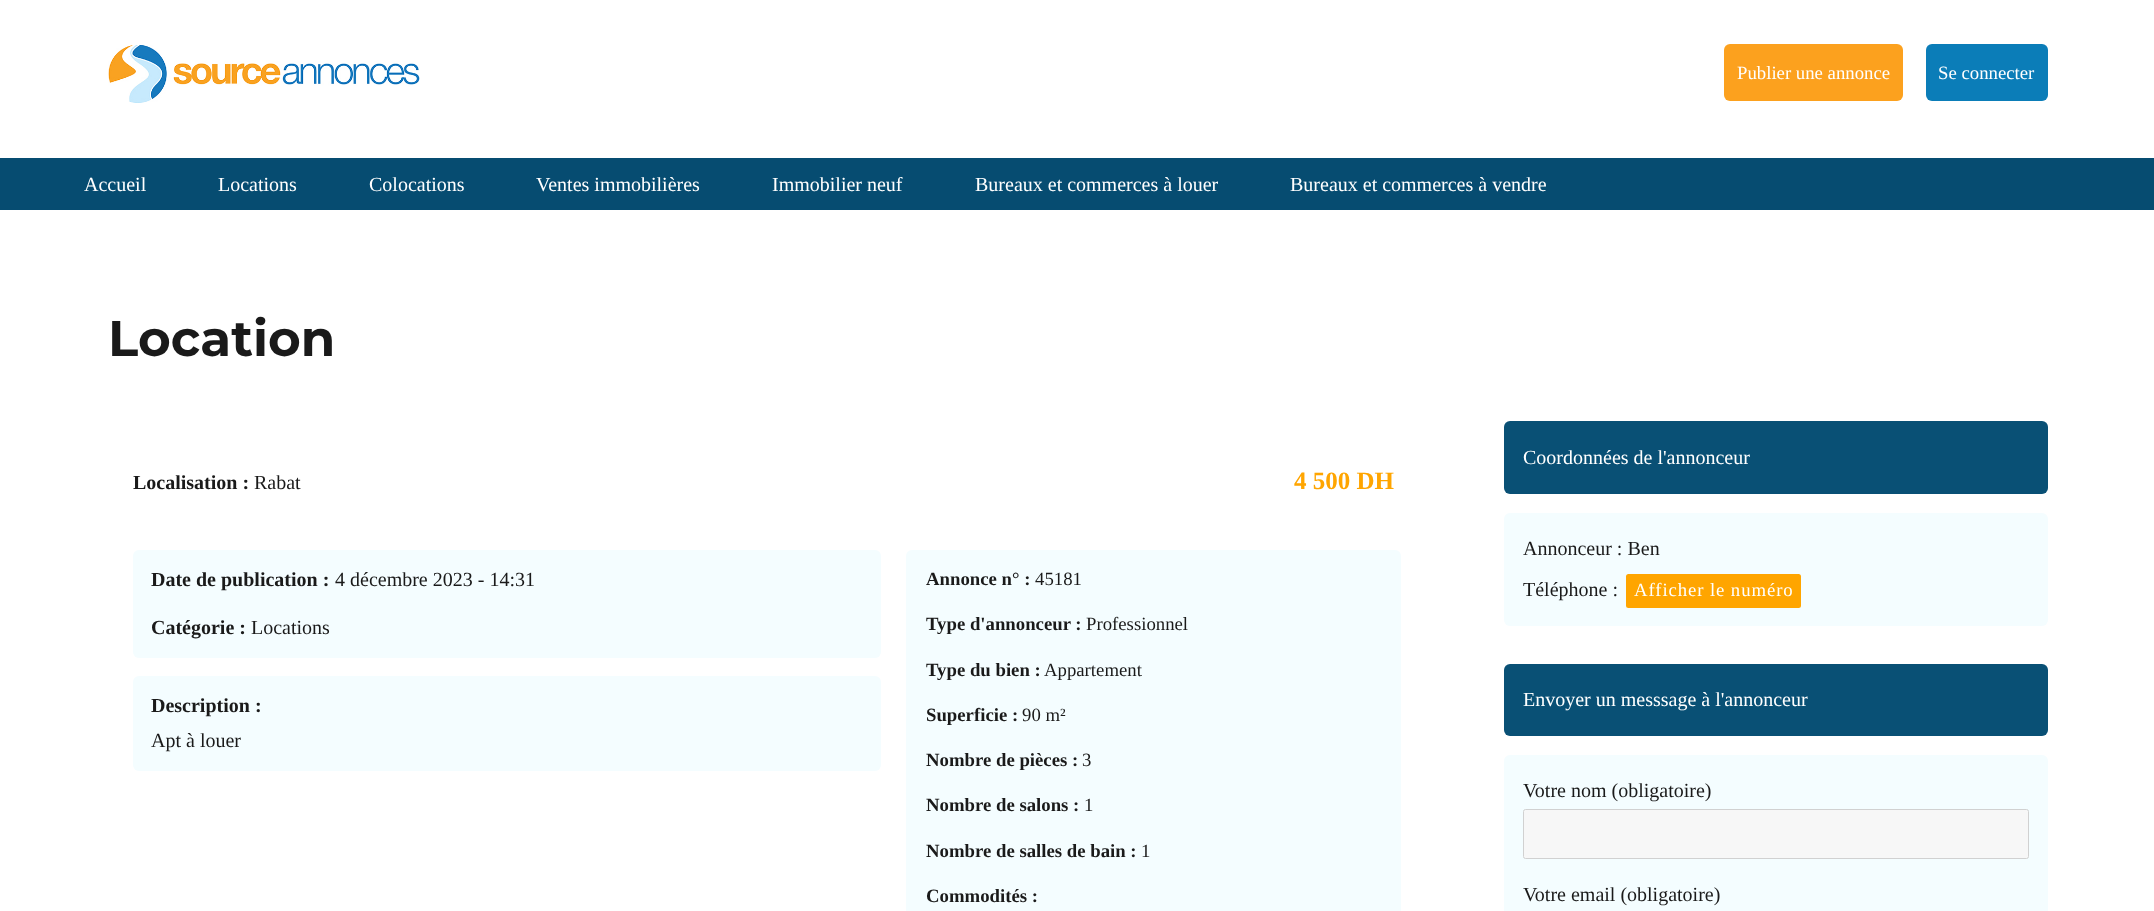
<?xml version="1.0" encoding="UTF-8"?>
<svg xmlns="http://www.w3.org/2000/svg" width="2154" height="911">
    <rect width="100%" height="100%" fill="#FFFFFF"/>
    <image x="108" y="45" width="312" height="58" href="img_01.png"/>
    <rect x="1724" y="44" width="179" height="57" rx="6" fill="#FCA11E"/>
    <text x="1737" y="79" font-family="Liberation Serif" font-size="18.75" fill="#FFFFFF">Publier une annonce</text>
    <rect x="1926" y="44" width="122" height="57" rx="6" fill="#0B7DB8"/>
    <text x="1938" y="79" font-family="Liberation Serif" font-size="18.75" fill="#FFFFFF">Se connecter</text>
    <rect x="0" y="158" width="2154" height="52" fill="#064C71"/>
    <text x="84" y="191" font-family="Liberation Serif" font-size="20" fill="#FFFFFF">Accueil</text>
    <text x="218" y="191" font-family="Liberation Serif" font-size="20" fill="#FFFFFF">Locations</text>
    <text x="369" y="191" font-family="Liberation Serif" font-size="20" fill="#FFFFFF">Colocations</text>
    <text x="536" y="191" font-family="Liberation Serif" font-size="20" fill="#FFFFFF">Ventes immobilières</text>
    <text x="772" y="191" font-family="Liberation Serif" font-size="20" fill="#FFFFFF">Immobilier neuf</text>
    <text x="975" y="191" font-family="Liberation Serif" font-size="20" fill="#FFFFFF">Bureaux et commerces à louer</text>
    <text x="1290" y="191" font-family="Liberation Serif" font-size="20" fill="#FFFFFF">Bureaux et commerces à vendre</text>
    <text x="108" y="356" font-family="Montserrat" font-size="50" font-weight="700" fill="#1A1A1A">Location</text>
    <text x="133" y="489" font-family="Liberation Serif" font-size="20" font-weight="700" fill="#1A1A1A">Localisation :</text>
    <text x="254" y="489" font-family="Liberation Serif" font-size="20" fill="#1A1A1A">Rabat</text>
    <text x="1294" y="489" font-family="Liberation Serif" font-size="25" font-weight="700" fill="#FFA500">4 500 DH</text>
    <rect x="133" y="550" width="748" height="108" rx="6" fill="#F4FDFF"/>
    <text x="151" y="586" font-family="Liberation Serif" font-size="20" font-weight="700" fill="#1A1A1A">Date de publication :</text>
    <text x="335" y="586" font-family="Liberation Serif" font-size="20" fill="#1A1A1A">4 décembre 2023 - 14:31</text>
    <text x="151" y="634" font-family="Liberation Serif" font-size="20" font-weight="700" fill="#1A1A1A">Catégorie :</text>
    <text x="251" y="634" font-family="Liberation Serif" font-size="20" fill="#1A1A1A">Locations</text>
    <rect x="133" y="676" width="748" height="95" rx="6" fill="#F4FDFF"/>
    <text x="151" y="712" font-family="Liberation Serif" font-size="20" font-weight="700" fill="#1A1A1A">Description :</text>
    <text x="151" y="747" font-family="Liberation Serif" font-size="20" fill="#1A1A1A">Apt à louer</text>
    <rect x="906" y="550" width="495" height="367" rx="6" fill="#F4FDFF"/>
    <text x="926" y="585" font-family="Liberation Serif" font-size="18.75" font-weight="700" fill="#1A1A1A">Annonce n° :</text>
    <text x="1035" y="585" font-family="Liberation Serif" font-size="18.75" fill="#1A1A1A">45181</text>
    <text x="926" y="630" font-family="Liberation Serif" font-size="18.75" font-weight="700" fill="#1A1A1A">Type d'annonceur :</text>
    <text x="1086" y="630" font-family="Liberation Serif" font-size="18.75" fill="#1A1A1A">Professionnel</text>
    <text x="926" y="676" font-family="Liberation Serif" font-size="18.75" font-weight="700" fill="#1A1A1A">Type du bien :</text>
    <text x="1044" y="676" font-family="Liberation Serif" font-size="18.75" fill="#1A1A1A">Appartement</text>
    <text x="926" y="721" font-family="Liberation Serif" font-size="18.75" font-weight="700" fill="#1A1A1A">Superficie :</text>
    <text x="1022" y="721" font-family="Liberation Serif" font-size="18.75" fill="#1A1A1A">90 m²</text>
    <text x="926" y="766" font-family="Liberation Serif" font-size="18.75" font-weight="700" fill="#1A1A1A">Nombre de pièces :</text>
    <text x="1082" y="766" font-family="Liberation Serif" font-size="18.75" fill="#1A1A1A">3</text>
    <text x="926" y="811" font-family="Liberation Serif" font-size="18.75" font-weight="700" fill="#1A1A1A">Nombre de salons :</text>
    <text x="1084" y="811" font-family="Liberation Serif" font-size="18.75" fill="#1A1A1A">1</text>
    <text x="926" y="857" font-family="Liberation Serif" font-size="18.75" font-weight="700" fill="#1A1A1A">Nombre de salles de bain :</text>
    <text x="1141" y="857" font-family="Liberation Serif" font-size="18.75" fill="#1A1A1A">1</text>
    <text x="926" y="902" font-family="Liberation Serif" font-size="18.75" font-weight="700" fill="#1A1A1A">Commodités :</text>
    <rect x="1504" y="421" width="544" height="73" rx="6" fill="#095075"/>
    <text x="1523" y="464" font-family="Liberation Serif" font-size="20" fill="#FFFFFF">Coordonnées de l'annonceur</text>
    <rect x="1504" y="513" width="544" height="113" rx="6" fill="#F4FDFF"/>
    <text x="1523" y="555" font-family="Liberation Serif" font-size="20" fill="#1A1A1A">Annonceur : Ben</text>
    <text x="1523" y="596" font-family="Liberation Serif" font-size="20" fill="#1A1A1A">Téléphone :</text>
    <rect x="1626" y="574" width="175" height="34" rx="2.5" fill="#FFA500"/>
    <text x="1634" y="596" font-family="Liberation Serif" font-size="18.75" letter-spacing="0.9" fill="#FFFFFF">Afficher le numéro</text>
    <rect x="1504" y="664" width="544" height="72" rx="6" fill="#095075"/>
    <text x="1523" y="706" font-family="Liberation Serif" font-size="20" fill="#FFFFFF">Envoyer un messsage à l'annonceur</text>
    <rect x="1504" y="755" width="544" height="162" rx="6" fill="#F4FDFF"/>
    <text x="1523" y="797" font-family="Liberation Serif" font-size="20" fill="#1A1A1A">Votre nom (obligatoire)</text>
    <rect x="1523.5" y="809.5" width="505" height="49" rx="2" fill="#F7F7F7" stroke="#D1D1D1"/>
    <text x="1523" y="901" font-family="Liberation Serif" font-size="20" fill="#1A1A1A">Votre email (obligatoire)</text>
</svg>
